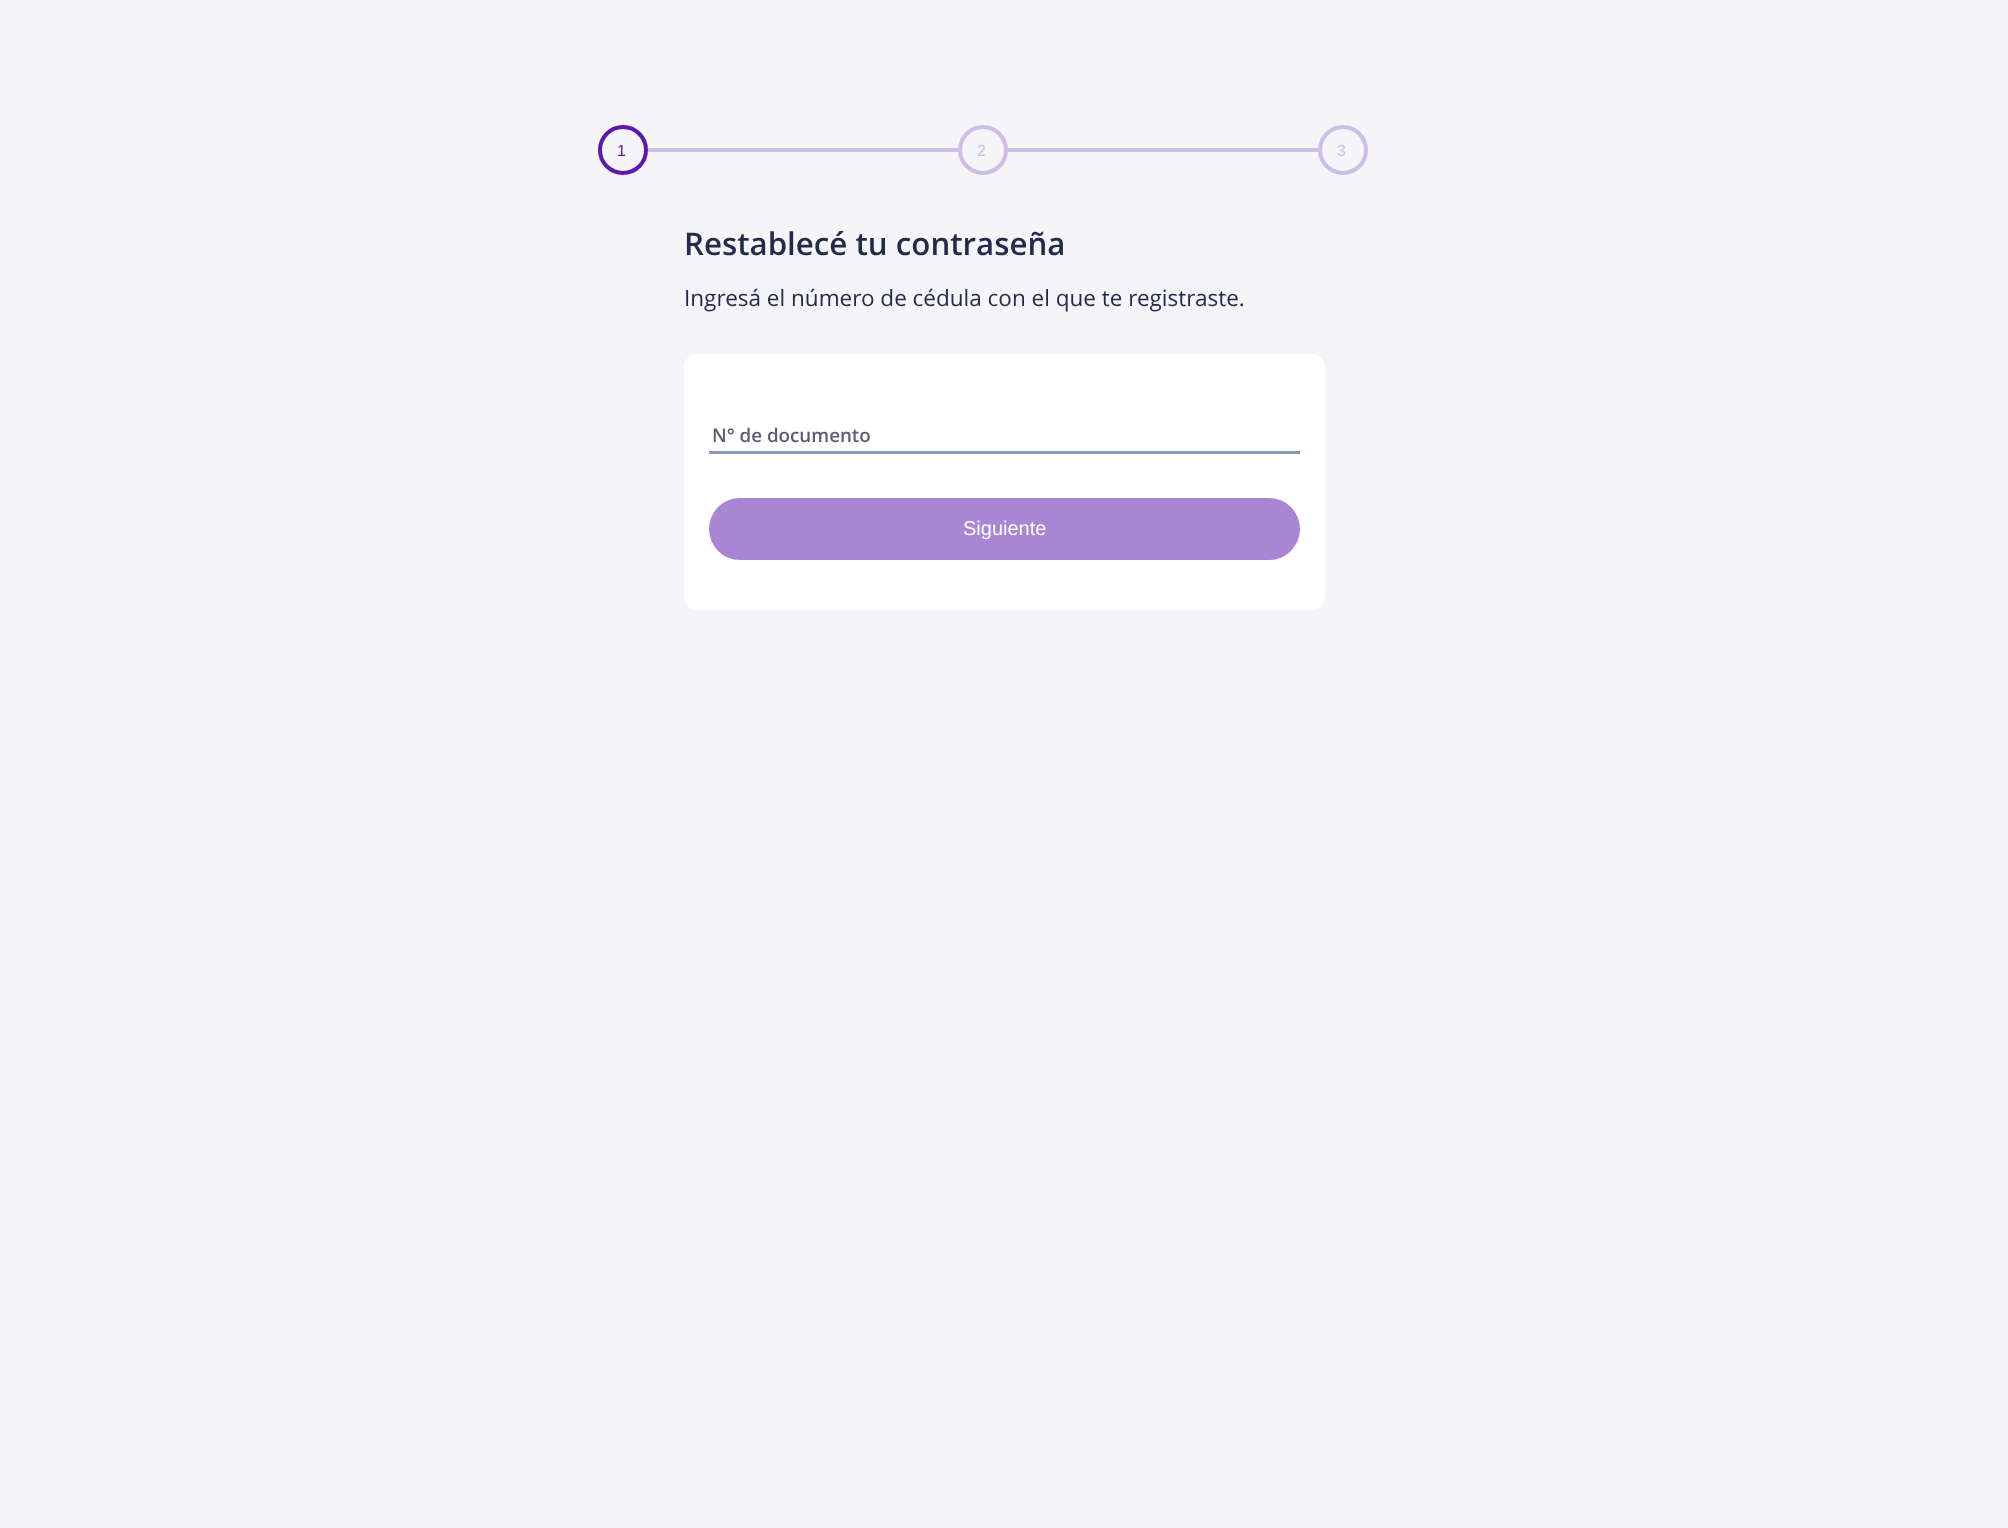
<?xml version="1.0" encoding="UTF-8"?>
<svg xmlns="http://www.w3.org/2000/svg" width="2008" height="1528">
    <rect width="100%" height="100%" fill="#F4F4F9"/>
    <circle cx="623" cy="150" r="23" fill="none" stroke="#5C19AE" stroke-width="4"/>
    <text x="617" y="156" font-family="Liberation Sans" font-size="16" fill="#5C19AE">1</text>
    <rect x="648" y="148" width="720" height="4" fill="#CEBEE6"/>
    <circle cx="983" cy="150" r="23" fill="#F4F4F9" stroke="#CEBEE6" stroke-width="4"/>
    <text x="977" y="156" font-family="Liberation Sans" font-size="16" fill="#CEBEE6">2</text>
    <circle cx="1343" cy="150" r="23" fill="#F4F4F9" stroke="#CEBEE6" stroke-width="4"/>
    <text x="1337" y="156" font-family="Liberation Sans" font-size="16" fill="#CEBEE6">3</text>
    <text x="684" y="255" font-family="Open Sans" font-size="31.25" font-weight="600" fill="#242B4A">Restablecé tu contraseña</text>
    <text x="684" y="306" font-family="Open Sans" font-size="22.5" fill="#242B4A">Ingresá el número de cédula con el que te registraste.</text>
    <rect x="684" y="354" width="641" height="256" rx="13" fill="#FFFFFF"/>
    <text x="712" y="442" font-family="Open Sans" font-size="18.75" font-weight="600" fill="#595E75">N° de documento</text>
    <rect x="709" y="451" width="591" height="3" fill="#8D95BA"/>
    <rect x="709" y="498" width="591" height="62" rx="31" fill="#A886D3"/>
    <text x="963" y="535" font-family="Liberation Sans" font-size="20" fill="#FFFFFF">Siguiente</text>
</svg>
